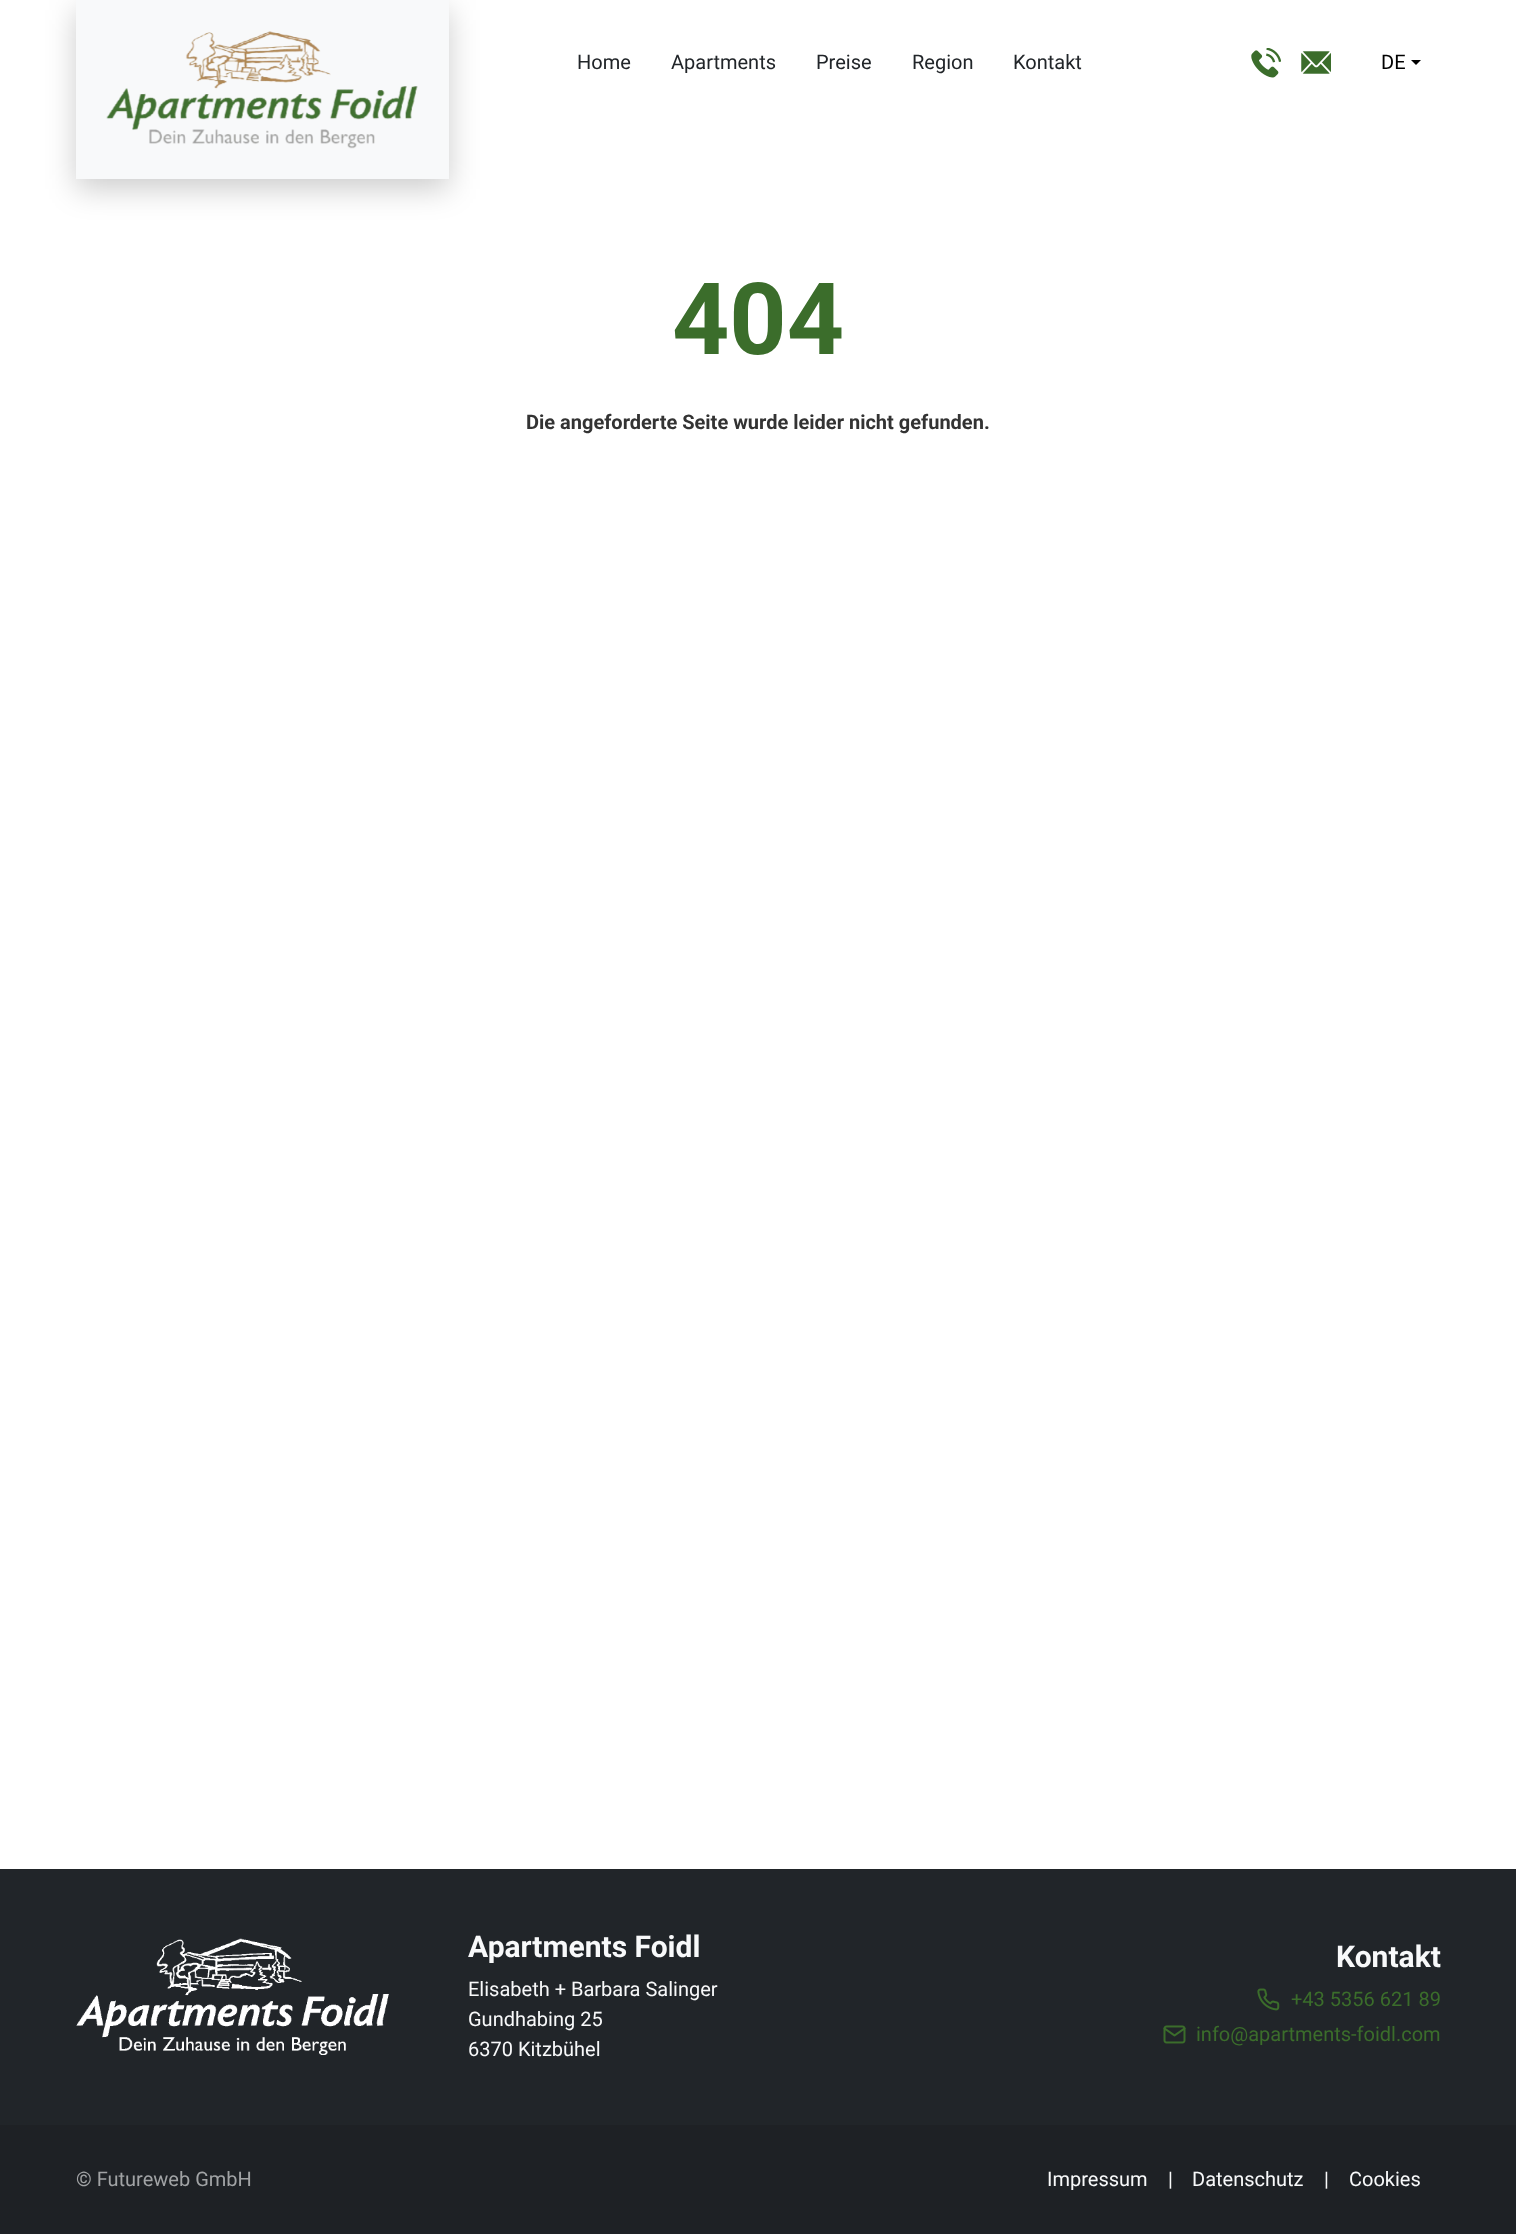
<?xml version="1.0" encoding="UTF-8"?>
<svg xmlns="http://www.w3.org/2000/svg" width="1516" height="2234">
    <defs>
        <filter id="blur1" x="-50%" y="-200%" width="200%" height="500%"><feGaussianBlur stdDeviation="15"/></filter>
    </defs>
    <rect width="100%" height="100%" fill="#FFFFFF"/>
    <rect x="76" y="10" width="373" height="179" fill="#000000" fill-opacity="0.2" filter="url(#blur1)"/>
    <rect x="76" y="0" width="373" height="179" fill="#F8F9FA"/>
    <image x="106" y="31" width="312" height="118" href="img_01.png"/>
    <text x="577" y="69" font-family="Roboto" font-size="20" fill="#212529">Home</text>
    <text x="671" y="69" font-family="Roboto" font-size="20" fill="#212529">Apartments</text>
    <text x="816" y="69" font-family="Roboto" font-size="20" fill="#212529">Preise</text>
    <text x="912" y="69" font-family="Roboto" font-size="20" fill="#212529">Region</text>
    <text x="1013" y="69" font-family="Roboto" font-size="20" fill="#212529">Kontakt</text>
    <image x="1251" y="48" width="30" height="30" href="img_02.png"/>
    <image x="1301" y="51" width="30" height="23" href="img_03.png"/>
    <text x="1381" y="69" font-family="Roboto" font-size="20" fill="#000000">DE</text>
    <path d="M 1411 60 H 1421 L 1416 65 Z" fill="#000000"/>
    <text x="672" y="354" font-family="Roboto" font-size="100" font-weight="700" fill="#3B6D2B">404</text>
    <text x="526" y="429" font-family="Roboto" font-size="20" font-weight="700" fill="#333333">Die angeforderte Seite wurde leider nicht gefunden.</text>
    <rect x="0" y="1869" width="1516" height="256" fill="#212529"/>
    <image x="76" y="1938" width="313" height="117" href="img_04.png"/>
    <text x="468" y="1957" font-family="Roboto" font-size="30" font-weight="700" fill="#F8F9FA">Apartments Foidl</text>
    <text font-family="Roboto" font-size="20" fill="#F8F9FA">
        <tspan x="468" y="1996">Elisabeth + Barbara Salinger</tspan>
        <tspan x="468" y="2026">Gundhabing 25</tspan>
        <tspan x="468" y="2056">6370 Kitzbühel</tspan>
    </text>
    <text x="1336" y="1967" font-family="Roboto" font-size="30" font-weight="700" fill="#F8F9FA">Kontakt</text>
    <image x="1257" y="1988" width="23" height="23" href="img_05.png"/>
    <text x="1291" y="2006" font-family="Roboto" font-size="20" fill="#3B6D2B">+43 5356 621 89</text>
    <image x="1163" y="2025" width="23" height="19" href="img_06.png"/>
    <text x="1196" y="2041" font-family="Roboto" font-size="20" fill="#3B6D2B">info@apartments-foidl.com</text>
    <rect x="0" y="2125" width="1516" height="109" fill="#1E2125"/>
    <text x="76" y="2186" font-family="Roboto" font-size="20" fill="#A1A3A5">© Futureweb GmbH</text>
    <text x="1047" y="2186" font-family="Roboto" font-size="20" fill="#F8F9FA">Impressum</text>
    <text x="1168" y="2186" font-family="Roboto" font-size="20" fill="#F8F9FA">|</text>
    <text x="1192" y="2186" font-family="Roboto" font-size="20" fill="#F8F9FA">Datenschutz</text>
    <text x="1324" y="2186" font-family="Roboto" font-size="20" fill="#F8F9FA">|</text>
    <text x="1349" y="2186" font-family="Roboto" font-size="20" fill="#F8F9FA">Cookies</text>
</svg>
